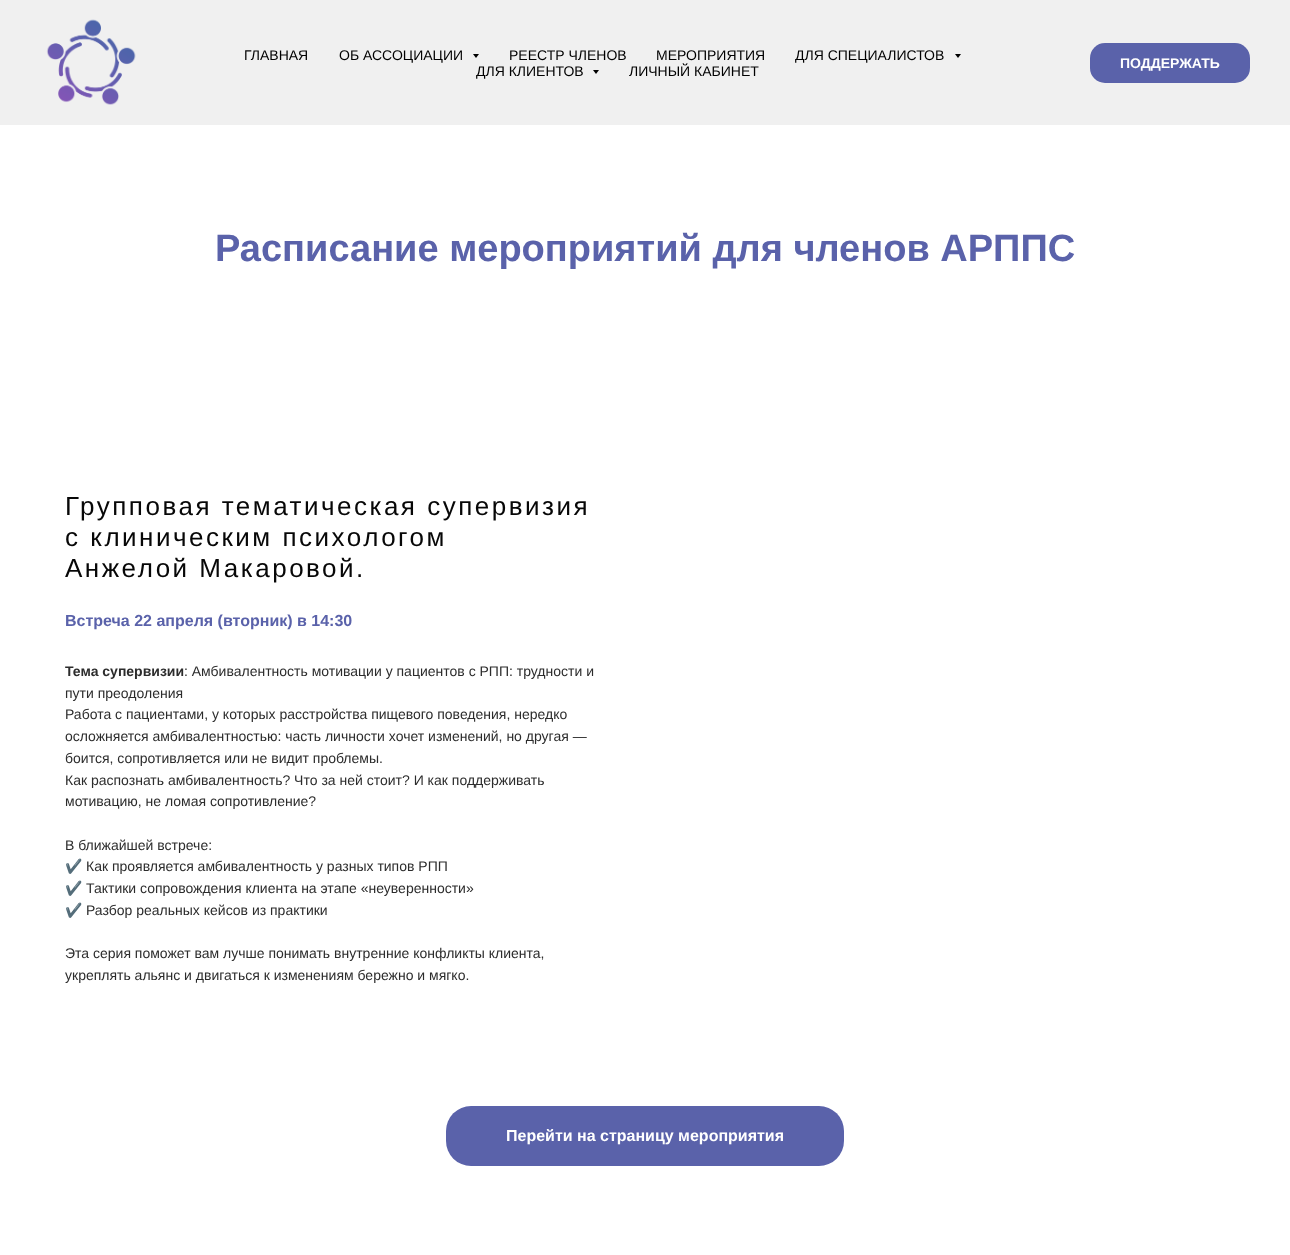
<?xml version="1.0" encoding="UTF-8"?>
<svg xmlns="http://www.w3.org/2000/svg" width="1290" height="1255">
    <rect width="100%" height="100%" fill="#FFFFFF"/>
    <rect x="0" y="0" width="1290" height="125" fill="#F0F0F0"/>
    <image x="46" y="19" width="90" height="86" href="img_01.png"/>
    <text x="244" y="60" font-family="Liberation Sans" font-size="14" fill="#000000">ГЛАВНАЯ</text>
    <text x="339" y="60" font-family="Liberation Sans" font-size="14" fill="#000000">ОБ АССОЦИАЦИИ</text>
    <path d="M 473 54 H 479 L 476 58 Z" fill="#000000"/>
    <text x="509" y="60" font-family="Liberation Sans" font-size="14" fill="#000000">РЕЕСТР ЧЛЕНОВ</text>
    <text x="656" y="60" font-family="Liberation Sans" font-size="14" fill="#000000">МЕРОПРИЯТИЯ</text>
    <text x="795" y="60" font-family="Liberation Sans" font-size="14" fill="#000000">ДЛЯ СПЕЦИАЛИСТОВ</text>
    <path d="M 955 54 H 961 L 958 58 Z" fill="#000000"/>
    <text x="476" y="76" font-family="Liberation Sans" font-size="14" fill="#000000">ДЛЯ КЛИЕНТОВ</text>
    <path d="M 593 70 H 599 L 596 74 Z" fill="#000000"/>
    <text x="629" y="76" font-family="Liberation Sans" font-size="14" fill="#000000">ЛИЧНЫЙ КАБИНЕТ</text>
    <rect x="1090" y="43" width="160" height="40" rx="15" fill="#5A62AA"/>
    <text x="1120" y="68" font-family="Liberation Sans" font-size="14" font-weight="700" fill="#FFFFFF">ПОДДЕРЖАТЬ</text>
    <text x="215" y="261" font-family="Liberation Sans" font-size="38" font-weight="700" fill="#5A62AA">Расписание мероприятий для членов АРППС</text>
    <text font-family="Liberation Sans" font-size="26" letter-spacing="2.5" fill="#070707">
        <tspan x="65" y="515">Групповая тематическая супервизия</tspan>
        <tspan x="65" y="546">с клиническим психологом</tspan>
        <tspan x="65" y="577">Анжелой Макаровой.</tspan>
    </text>
    <text x="65" y="626" font-family="Liberation Sans" font-size="16" font-weight="700" fill="#5A62AA">Встреча 22 апреля (вторник) в 14:30</text>
    <text x="65" y="676" font-family="Liberation Sans" font-size="14" font-weight="700" fill="#2C2C2C">Тема супервизии</text>
    <text x="184" y="676" font-family="Liberation Sans" font-size="14" fill="#2C2C2C">: Амбивалентность мотивации у пациентов с РПП: трудности и</text>
    <text font-family="Liberation Sans" font-size="14" fill="#2C2C2C">
        <tspan x="65" y="698">пути преодоления</tspan>
        <tspan x="65" y="719">Работа с пациентами, у которых расстройства пищевого поведения, нередко</tspan>
        <tspan x="65" y="741">осложняется амбивалентностью: часть личности хочет изменений, но другая —</tspan>
        <tspan x="65" y="763">боится, сопротивляется или не видит проблемы.</tspan>
        <tspan x="65" y="785">Как распознать амбивалентность? Что за ней стоит? И как поддерживать</tspan>
        <tspan x="65" y="806">мотивацию, не ломая сопротивление?</tspan>
    </text>
    <text x="65" y="850" font-family="Liberation Sans" font-size="14" fill="#2C2C2C">В ближайшей встрече:</text>
    <text x="65" y="871" font-family="Noto Color Emoji" font-size="14" fill="#2C2C2C">✔️</text>
    <text x="86" y="871" font-family="Liberation Sans" font-size="14" fill="#2C2C2C">Как проявляется амбивалентность у разных типов РПП</text>
    <text x="65" y="893" font-family="Noto Color Emoji" font-size="14" fill="#2C2C2C">✔️</text>
    <text x="86" y="893" font-family="Liberation Sans" font-size="14" fill="#2C2C2C">Тактики сопровождения клиента на этапе «неуверенности»</text>
    <text x="65" y="915" font-family="Noto Color Emoji" font-size="14" fill="#2C2C2C">✔️</text>
    <text x="86" y="915" font-family="Liberation Sans" font-size="14" fill="#2C2C2C">Разбор реальных кейсов из практики</text>
    <text font-family="Liberation Sans" font-size="14" fill="#2C2C2C">
        <tspan x="65" y="958">Эта серия поможет вам лучше понимать внутренние конфликты клиента,</tspan>
        <tspan x="65" y="980">укреплять альянс и двигаться к изменениям бережно и мягко.</tspan>
    </text>
    <rect x="446" y="1106" width="398" height="60" rx="25" fill="#5A62AA"/>
    <text x="506" y="1141" font-family="Liberation Sans" font-size="16" font-weight="700" fill="#FFFFFF">Перейти на страницу мероприятия</text>
</svg>
